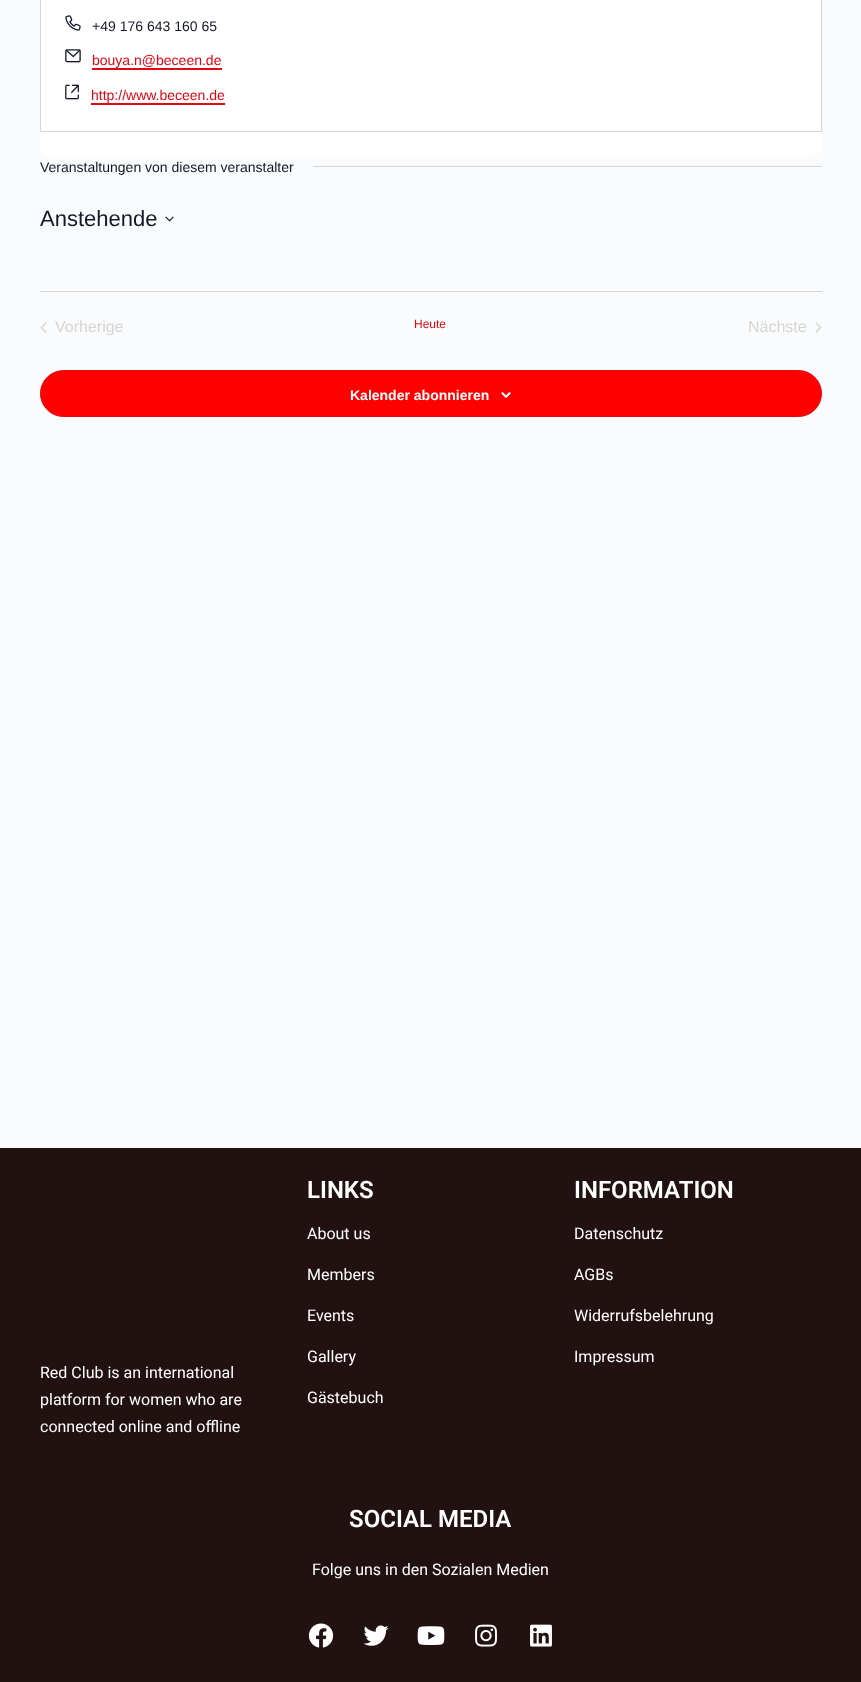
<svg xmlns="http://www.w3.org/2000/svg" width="861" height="1682">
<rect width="100%" height="100%" fill="#fafbfd"/>
<rect x="40" y="-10" width="782" height="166" rx="10" fill="#fff"/>
<rect x="40.5" y="-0.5" width="781" height="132" fill="none" stroke="#d5d5d5"/>
<image x="65" y="15" width="16" height="16" href="media/1.png"/>
<text x="92" y="31" style="font-family:Liberation Sans;font-size:14px;fill:#141827">+49 176 643 160 65</text>
<image x="65" y="49" width="16" height="14" href="media/2.png"/>
<text x="92" y="65" style="font-family:Liberation Sans;font-size:14px;fill:#e30613">bouya.n@beceen.de</text>
<rect x="92" y="68" width="130" height="2" fill="#e30614"/>
<image x="65" y="84" width="14" height="16" href="media/3.png"/>
<text x="91" y="100" style="font-family:Liberation Sans;font-size:14px;fill:#e30613">http://www.beceen.de</text>
<rect x="91" y="103" width="134" height="2" fill="#e30614"/>
<text x="40" y="172" style="font-family:Liberation Sans;font-size:14px;fill:#141827">Veranstaltungen von diesem veranstalter</text>
<rect x="313" y="166" width="509" height="1" fill="#d5d5d5"/>
<text x="40" y="226" style="font-family:Liberation Sans;font-size:22px;fill:#141827">Anstehende</text>
<image x="165" y="216" width="9" height="6" href="media/4.png"/>
<rect x="40" y="291" width="782" height="1" fill="#d5d5d5"/>
<image x="40" y="322" width="7" height="11" href="media/5.png"/>
<text x="55" y="332" style="font-family:Liberation Sans;font-size:16px;fill:#d5d5d5">Vorherige</text>
<text x="414" y="328" style="font-family:Liberation Sans;font-size:12px;fill:#e30613">Heute</text>
<text x="748" y="332" style="font-family:Liberation Sans;font-size:16px;fill:#d5d5d5">Nächste</text>
<image x="815" y="322" width="7" height="11" href="media/6.png"/>
<rect x="40.5" y="370.5" width="781" height="46" rx="23" fill="#f00" stroke="#e30613"/>
<text x="350" y="400" style="font-family:Liberation Sans;font-size:14px;font-weight:bold;fill:#fff">Kalender abonnieren</text>
<image x="501" y="392" width="10" height="6" href="media/7.png"/>
<rect y="1148" width="861" height="534" fill="#211"/>
<text x="307" y="1198" style="font-family:Roboto;font-size:24px;font-weight:600;fill:#fff">LINKS</text>
<text x="307" y="1239" style="font-family:Roboto;font-size:16px;fill:#fff">About us</text>
<text x="307" y="1280" style="font-family:Roboto;font-size:16px;fill:#fff">Members</text>
<text x="307" y="1321" style="font-family:Roboto;font-size:16px;fill:#fff">Events</text>
<text x="307" y="1362" style="font-family:Roboto;font-size:16px;fill:#fff">Gallery</text>
<text x="307" y="1403" style="font-family:Roboto;font-size:16px;fill:#fff">Gästebuch</text>
<text x="574" y="1198" style="font-family:Roboto;font-size:24px;font-weight:600;fill:#fff">INFORMATION</text>
<text x="574" y="1239" style="font-family:Roboto;font-size:16px;fill:#fff">Datenschutz</text>
<text x="574" y="1280" style="font-family:Roboto;font-size:16px;fill:#fff">AGBs</text>
<text x="574" y="1321" style="font-family:Roboto;font-size:16px;fill:#fff">Widerrufsbelehrung</text>
<text x="574" y="1362" style="font-family:Roboto;font-size:16px;fill:#fff">Impressum</text>
<text x="40" y="1378" style="font-family:Roboto;font-size:16px;fill:#fff">Red Club is an international</text>
<text x="40" y="1405" style="font-family:Roboto;font-size:16px;fill:#fff">platform for women who are</text>
<text x="40" y="1432" style="font-family:Roboto;font-size:16px;fill:#fff">connected online and offline</text>
<text x="349" y="1527" style="font-family:Roboto;font-size:24px;font-weight:600;fill:#fff">SOCIAL MEDIA</text>
<text x="312" y="1575" style="font-family:Roboto;font-size:16px;fill:#fff">Folge uns in den Sozialen Medien</text>
<image x="308" y="1623" width="26" height="25" href="media/8.png"/>
<image x="363" y="1625" width="26" height="21" href="media/9.png"/>
<image x="417" y="1626" width="28" height="19" href="media/10.png"/>
<image x="475" y="1624" width="22" height="23" href="media/11.png"/>
<image x="530" y="1624" width="22" height="23" href="media/12.png"/>
</svg>
